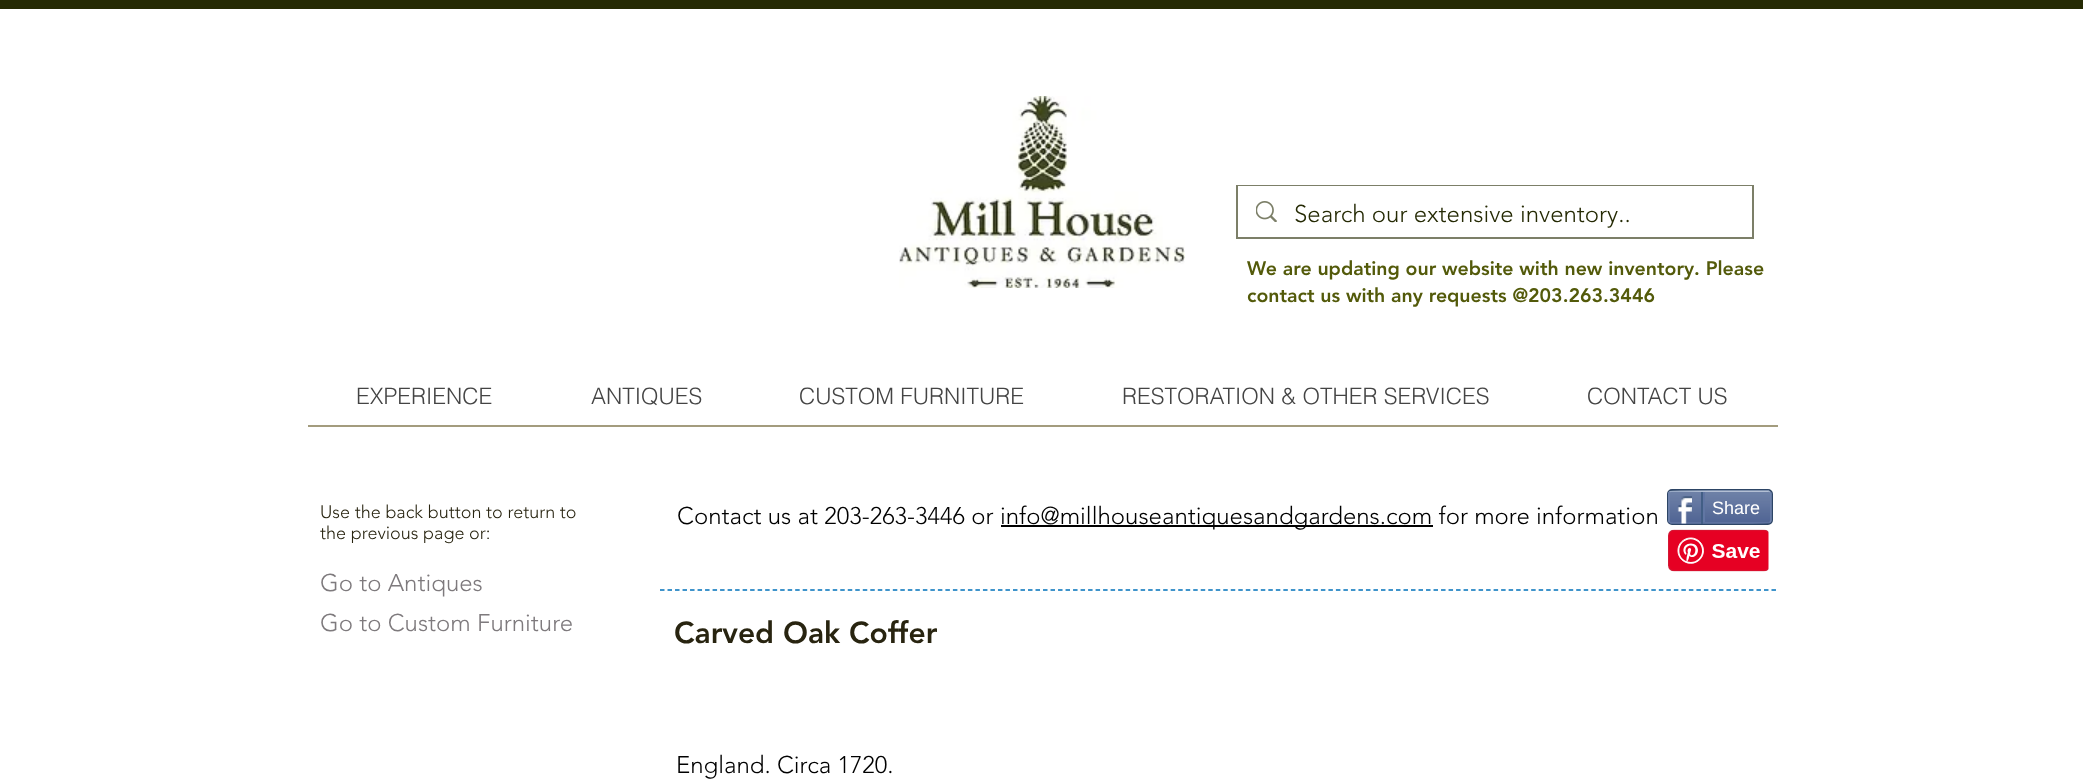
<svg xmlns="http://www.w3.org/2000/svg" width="2083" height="779">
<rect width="100%" height="100%" fill="#fff"/>
<rect width="2083" height="9" fill="#252a04"/>
<image x="899" y="96" width="286" height="192" href="media/1.png"/>
<rect x="1237" y="186" width="516" height="52" fill="none" stroke="#7c7f68" stroke-width="2"/>
<rect x="1238" y="186" width="514" height="1" fill="#fff"/>
<image x="1256" y="201" width="21" height="21" href="media/2.png"/>
<text x="1294" y="222" style="font-family:'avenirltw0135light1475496';font-size:24px;font-weight:300;fill:#252a04">Search our extensive inventory..</text>
<text x="1247" y="275" style="font-family:'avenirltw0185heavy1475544';font-size:19.5px;font-weight:900;fill:#535a0a">We are updating our website with new inventory. Please</text>
<text x="1247" y="302" style="font-family:'avenirltw0185heavy1475544';font-size:19.5px;font-weight:900;fill:#535a0a">contact us with any requests @203.263.3446</text>
<text x="356" y="404" style="font-family:helvetica;font-size:22.5px;font-weight:300;fill:#444">EXPERIENCE</text>
<rect x="308" y="425" width="1470" height="2" fill="#a39c7e"/>
<text x="591" y="404" style="font-family:helvetica;font-size:22.5px;font-weight:300;fill:#444">ANTIQUES</text>
<text x="799" y="404" style="font-family:helvetica;font-size:22.5px;font-weight:300;fill:#444">CUSTOM FURNITURE</text>
<text x="1122" y="404" style="font-family:helvetica;font-size:22.5px;font-weight:300;fill:#444">RESTORATION &amp; OTHER SERVICES</text>
<text x="1587" y="404" style="font-family:helvetica;font-size:22.5px;font-weight:300;fill:#444">CONTACT US</text>
<text x="320" y="518" style="font-family:'avenirltw0135light1475496';font-size:18px;font-weight:300;fill:#282410">Use the back button to return to</text>
<text x="320" y="539" style="font-family:'avenirltw0135light1475496';font-size:18px;font-weight:300;fill:#282410">the previous page or:</text>
<text x="677" y="524" style="font-family:'avenirltw0135light1475496';font-size:24px;font-weight:300;fill:#000">Contact us at 203-263-3446 or</text>
<rect x="1001" y="525" width="432" height="2" fill="#000"/>
<text x="1000" y="524" style="font-family:'avenirltw0135light1475496';font-size:24px;font-weight:300;fill:#000">info@millhouseantiquesandgardens.com for more information</text>
<rect x="1668" y="490" width="104" height="34" rx="4" fill="none" stroke="#2d4565" stroke-width="2"/>
<image x="1668" y="492" width="104" height="32" href="media/3.png"/>
<path d="M1669.5 492l.5-.5c1.5-1 74-.5 82-.5h16.5l1.5 1" fill="none" stroke="#9aabc6" stroke-width="1.5"/>
<path d="M1770 492c.5 .5 1 1 1 1.5v27c0 .5-.5 1-1 1.5" fill="none" stroke="#6f83ad" stroke-width="1.5"/>
<path d="M1770 522l-.5 .5c-1.5 1-74 .5-82.5 .5h-16l-1.5-1" fill="none" stroke="#6176a3" stroke-width="1.5"/>
<path d="M1669.5 522c-.5-.5-.5-1-.5-1.5v-27c0-.5 0-1 .5-1.5" fill="none" stroke="#6f83ad" stroke-width="1.5"/>
<image x="1677" y="496" width="15" height="28" href="media/4.png"/>
<rect x="1701" y="492" width="2" height="32" fill="#425e85"/>
<text x="1712" y="514" style="font-family:Liberation Sans;font-size:18px;fill:#fff">Share</text>
<rect x="1703" y="492" width="2" height="30" fill="#6176a3"/>
<image x="1668" y="529" width="101" height="43" href="media/5.png"/>
<text x="320" y="591" style="font-family:'avenirltw0135light1475496';font-size:24px;font-weight:300;fill:#7e7a7d">Go to Antiques</text>
<path d="M660 590h1117.5" fill="none" stroke="#0071bb" stroke-width="1.5" stroke-dasharray="4.5 3.01"/>
<text x="320" y="631" style="font-family:'avenirltw0135light1475496';font-size:24px;font-weight:300;fill:#7e7a7d">Go to Custom Furniture</text>
<text x="674" y="643" style="font-family:'avenirltw0185heavy1475544';font-size:30px;font-weight:900;fill:#282410">Carved Oak Coffer</text>
<text x="676" y="773" style="font-family:'avenirltw0135light1475496';font-size:24px;font-weight:300;fill:#000">England. Circa 1720.</text>
</svg>
